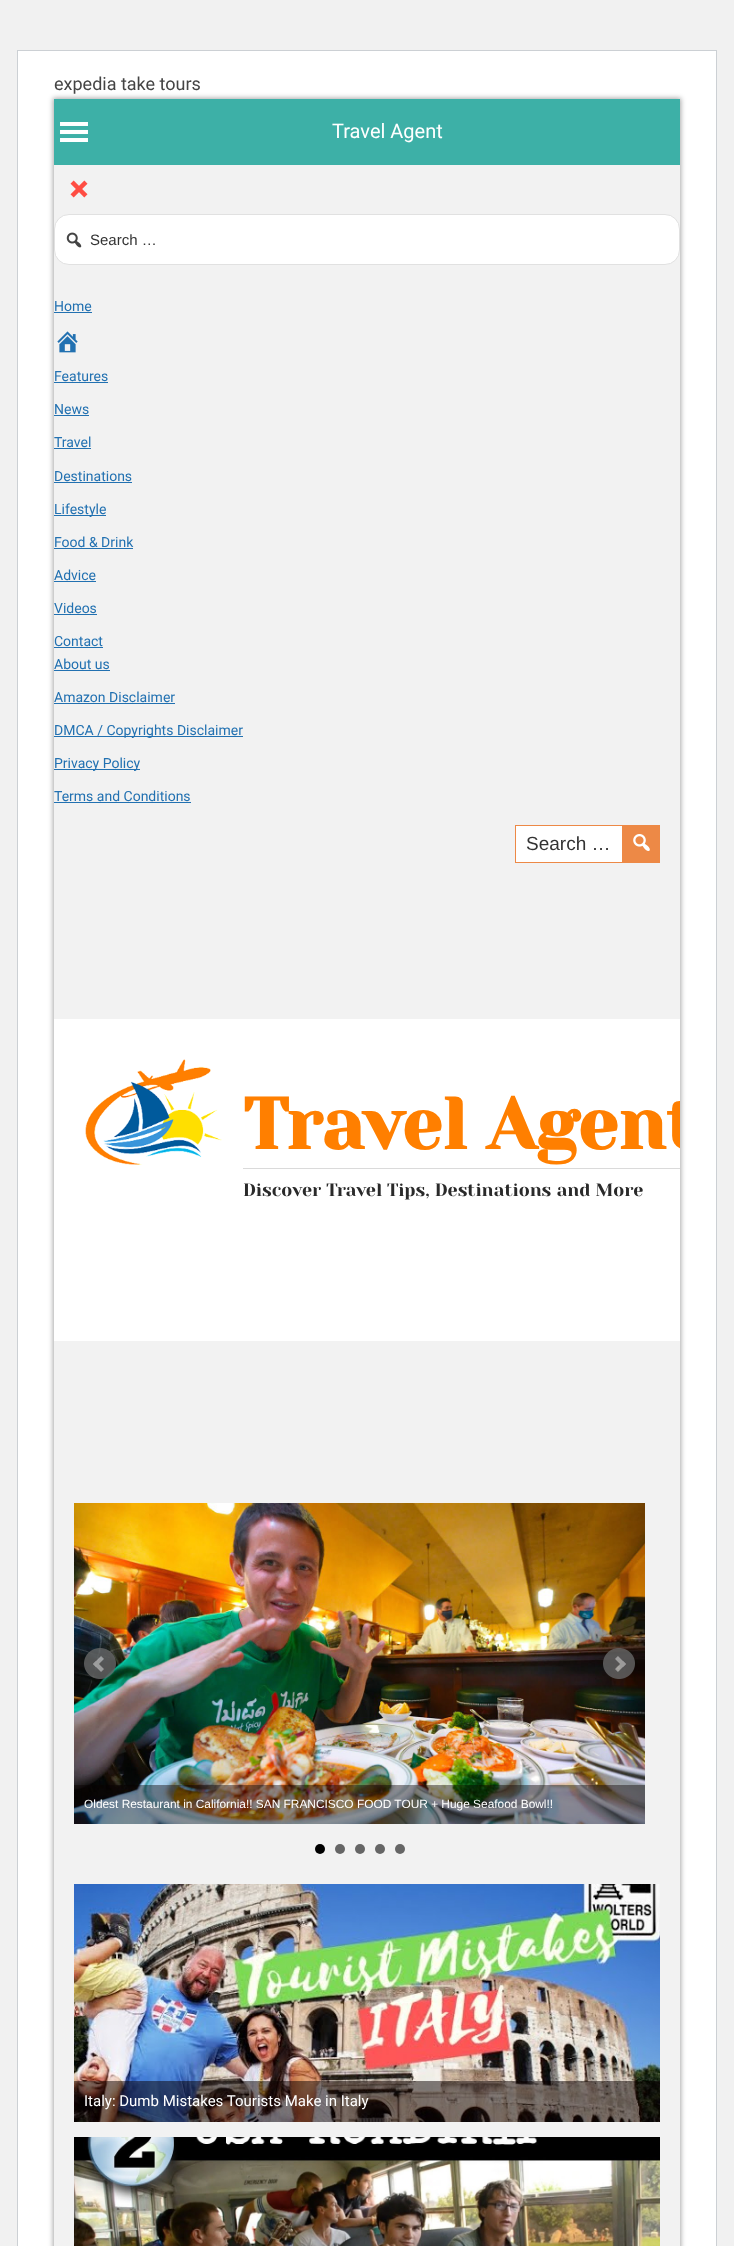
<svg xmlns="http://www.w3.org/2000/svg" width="734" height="2246">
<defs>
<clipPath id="clip1"><rect x="54" y="99" width="626" height="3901"/></clipPath>
</defs>
<rect width="100%" height="100%" fill="#f1f1f1"/>
<rect x="17.5" y="50.5" width="699" height="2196" fill="#fff" stroke="#ccd0d4"/>
<text x="54" y="90" style="font-family:Roboto;font-size:18px;fill:#444">expedia take tours</text>
<rect x="53" y="98" width="628" height="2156" fill="#00000057" filter="blur(2.5px)"/>
<rect x="54" y="165" width="626" height="2081" fill="#f2f2f2"/>
<rect x="54" y="99" width="626" height="66" fill="#3db0a7"/>
<image x="60" y="122" width="28" height="20" href="media/1.png"/>
<text x="332" y="138" style="font-family:Roboto;font-size:20px;fill:#fff">Travel Agent</text>
<image x="70" y="180" width="18" height="18" href="media/2.png"/>
<rect x="54.5" y="214.5" width="625" height="50" rx="14.5" fill="#fff" stroke="#e1e1e1"/>
<image x="66" y="232" width="16" height="16" href="media/3.png"/>
<text x="90" y="245" style="font-family:Liberation Sans;font-size:15px;fill:#333">Search …</text>
<text x="54" y="311" style="font-family:Roboto;font-size:14px;fill:#2271b1">Home</text>
<rect x="54" y="312" width="38" height="1" fill="#2271b1"/>
<image x="57" y="331" width="21" height="22" href="media/4.png"/>
<text x="54" y="381" style="font-family:Roboto;font-size:14px;fill:#2271b1">Features</text>
<rect x="54" y="382" width="54" height="1" fill="#2271b1"/>
<text x="54" y="414" style="font-family:Roboto;font-size:14px;fill:#2271b1">News</text>
<rect x="54" y="415" width="35" height="1" fill="#2271b1"/>
<text x="54" y="447" style="font-family:Roboto;font-size:14px;fill:#2271b1">Travel</text>
<rect x="54" y="448" width="37" height="1" fill="#2271b1"/>
<text x="54" y="481" style="font-family:Roboto;font-size:14px;fill:#2271b1">Destinations</text>
<rect x="54" y="482" width="78" height="1" fill="#2271b1"/>
<rect x="54" y="515" width="52" height="1" fill="#2271b1"/>
<text x="54" y="514" style="font-family:Roboto;font-size:14px;fill:#2271b1">Lifestyle</text>
<text x="54" y="547" style="font-family:Roboto;font-size:14px;fill:#2271b1">Food &amp; Drink</text>
<rect x="54" y="548" width="79" height="1" fill="#2271b1"/>
<text x="54" y="580" style="font-family:Roboto;font-size:14px;fill:#2271b1">Advice</text>
<rect x="54" y="581" width="42" height="1" fill="#2271b1"/>
<text x="54" y="613" style="font-family:Roboto;font-size:14px;fill:#2271b1">Videos</text>
<rect x="54" y="614" width="43" height="1" fill="#2271b1"/>
<text x="54" y="646" style="font-family:Roboto;font-size:14px;fill:#2271b1">Contact</text>
<rect x="54" y="647" width="49" height="1" fill="#2271b1"/>
<text x="54" y="669" style="font-family:Roboto;font-size:14px;fill:#2271b1">About us</text>
<rect x="54" y="670" width="56" height="1" fill="#2271b1"/>
<text x="54" y="702" style="font-family:Roboto;font-size:14px;fill:#2271b1">Amazon Disclaimer</text>
<rect x="54" y="703" width="121" height="1" fill="#2271b1"/>
<rect x="54" y="736" width="189" height="1" fill="#2271b1"/>
<text x="54" y="735" style="font-family:Roboto;font-size:14px;fill:#2271b1">DMCA / Copyrights Disclaimer</text>
<rect x="54" y="769" width="86" height="1" fill="#2271b1"/>
<text x="54" y="768" style="font-family:Roboto;font-size:14px;fill:#2271b1">Privacy Policy</text>
<text x="54" y="801" style="font-family:Roboto;font-size:14px;fill:#2271b1">Terms and Conditions</text>
<rect x="54" y="802" width="137" height="1" fill="#2271b1"/>
<rect x="516" y="826" width="106" height="36" fill="#fff"/>
<rect x="515.5" y="825.5" width="142" height="37" fill="none" stroke="#ed8946"/>
<text x="526" y="850" style="font-family:Liberation Sans;font-size:19px;fill:#333">Search …</text>
<rect x="622" y="825" width="38" height="38" fill="#ed8946"/>
<image x="633" y="834" width="17" height="17" href="media/5.png"/>
<rect x="54" y="1019" width="626" height="322" fill="#fff"/>
<image x="85" y="1059" width="137" height="106" href="media/6.png"/>
<rect x="243" y="1168" width="437" height="1" fill="#dadada"/>
<g clip-path="url(#clip1)">
<text x="243" y="1149" style="font-family:Yeseva One;font-size:72px;font-weight:bold;fill:#ff7f00">Travel Agent</text>
</g>
<text x="243" y="1196" style="font-family:Yeseva One;font-size:18px;fill:#2a2a2a">Discover Travel Tips, Destinations and More</text>
<image x="74" y="1503" width="571" height="321" href="media/9.png"/>
<image x="84" y="1648" width="32" height="31" href="media/7.png"/>
<image x="603" y="1648" width="32" height="31" href="media/8.png"/>
<circle cx="320" cy="1849" r="5" fill="#000"/>
<circle cx="340" cy="1849" r="5" fill="#666"/>
<circle cx="360" cy="1849" r="5" fill="#666"/>
<circle cx="380" cy="1849" r="5" fill="#666"/>
<circle cx="400" cy="1849" r="5" fill="#666"/>
<rect x="74" y="1785" width="571" height="39" fill="#0a00006b"/>
<text x="84" y="1808" style="font-family:Liberation Sans;font-size:11.9px;fill:#fff">Oldest Restaurant in California!! SAN FRANCISCO FOOD TOUR + Huge Seafood Bowl!!</text>
<image x="74" y="1884" width="586" height="238" href="media/10.png"/>
<rect x="74" y="2081" width="586" height="41" fill="#0a000080"/>
<text x="84" y="2106" style="font-family:Roboto;font-size:15px;fill:#fff">Italy: Dumb Mistakes Tourists Make in Italy</text>
<image x="74" y="2137" width="586" height="109" href="media/11.png"/>
</svg>
